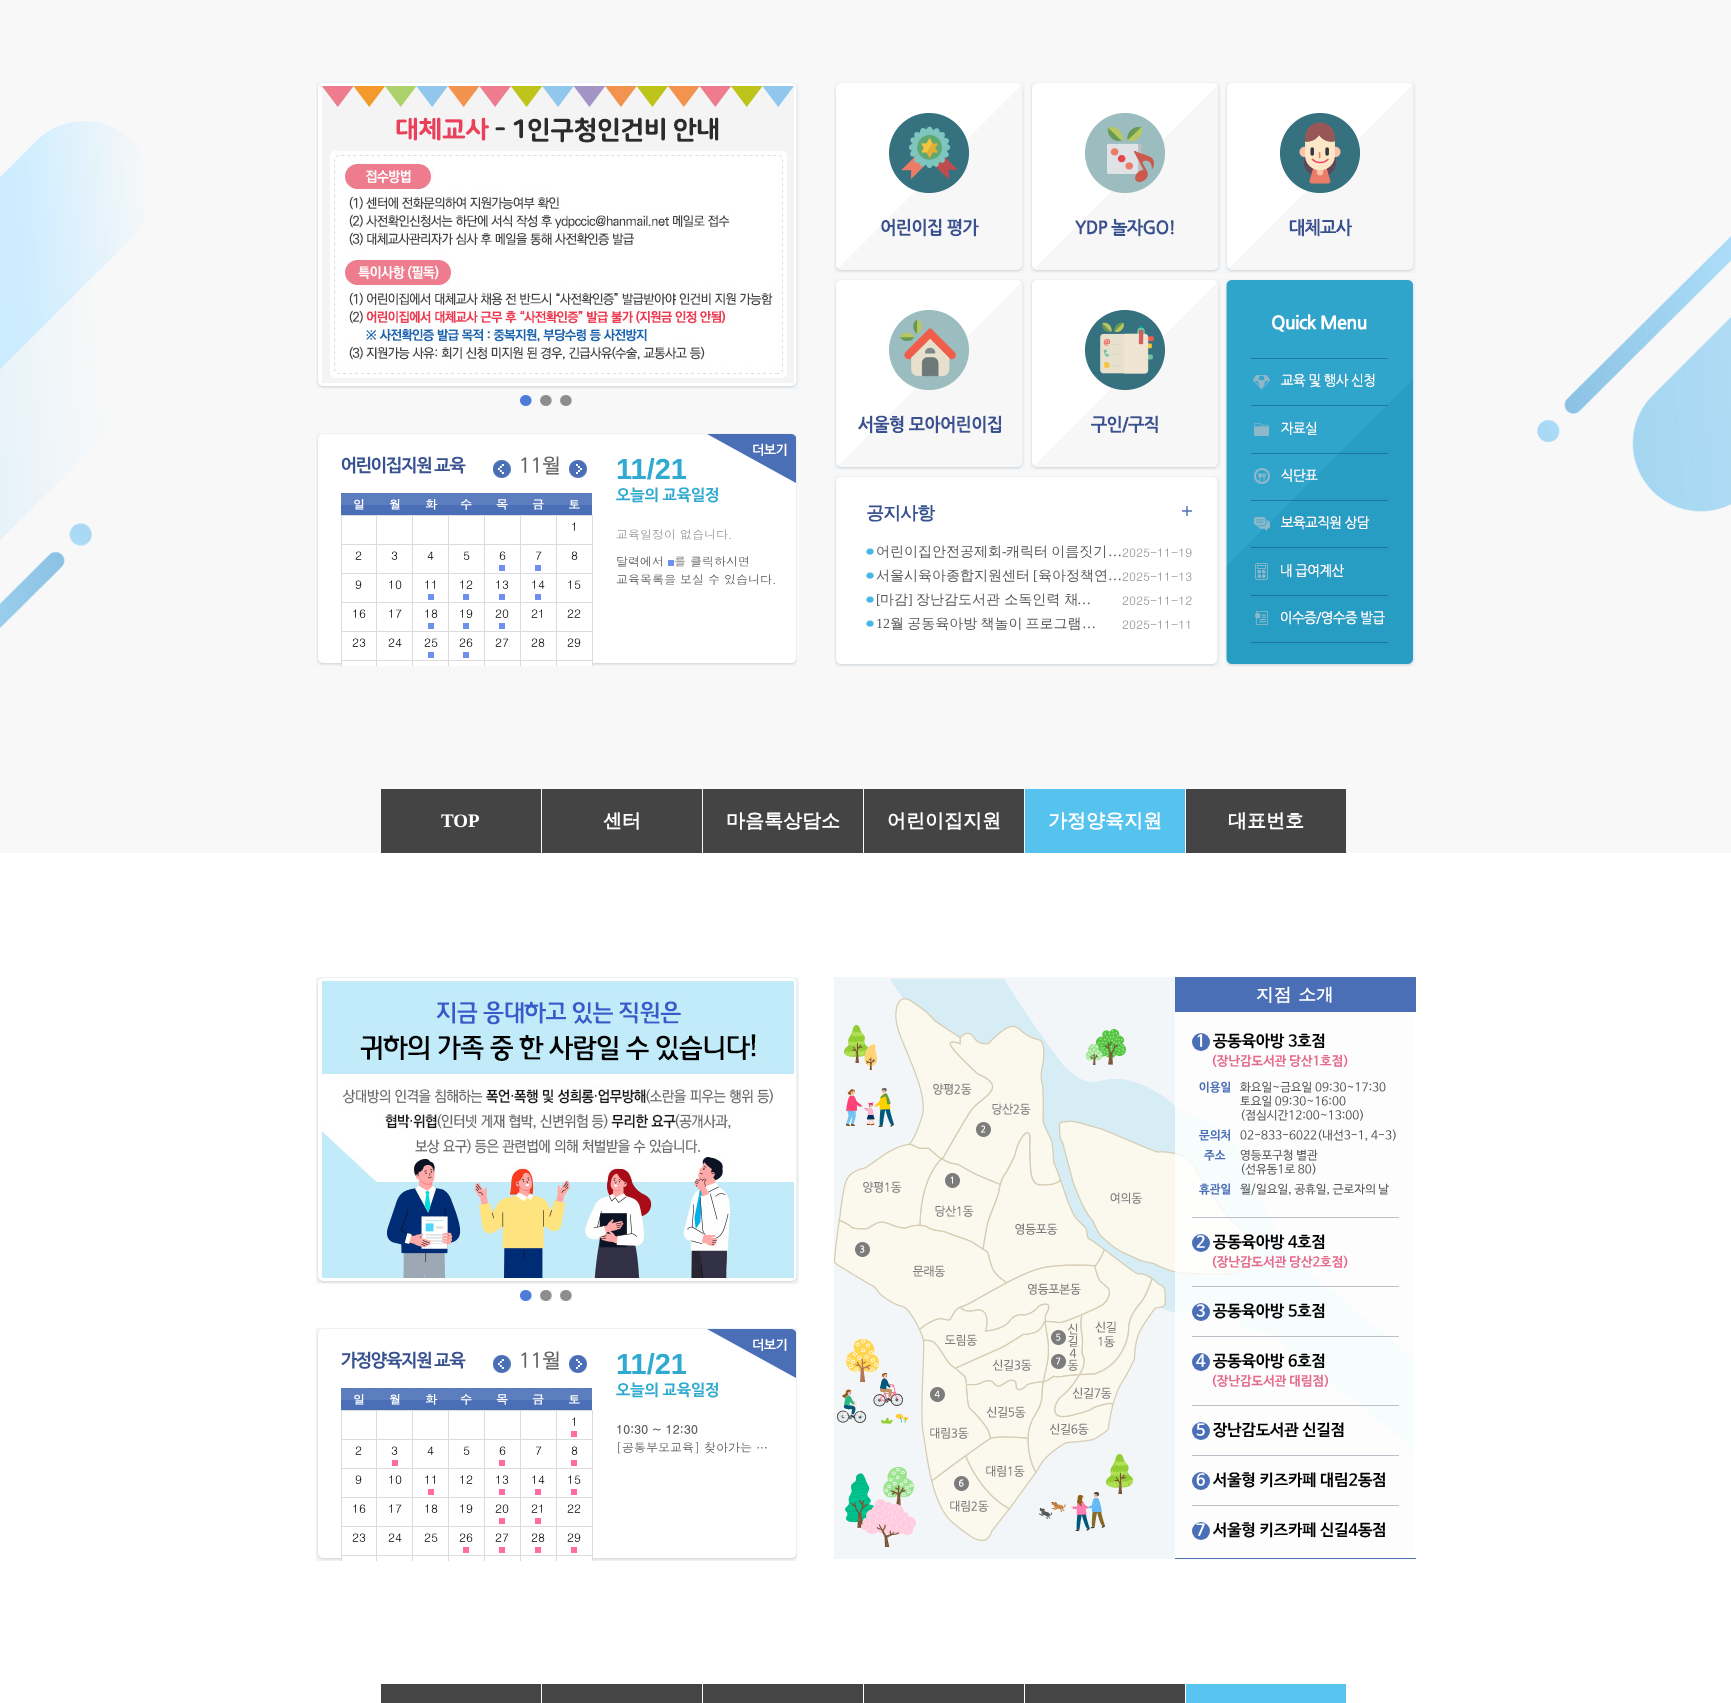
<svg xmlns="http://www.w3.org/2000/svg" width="1731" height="1703">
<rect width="100%" height="100%" fill="#fff"/>
<rect width="1731" height="853" fill="#f8f8f8"/>
<image x="0" y="121" width="144" height="507" href="media/1.png"/>
<image x="1537" y="236" width="194" height="276" href="media/2.png"/>
<image x="316" y="82" width="483" height="307" href="media/3.png"/>
<image x="322" y="86" width="472" height="297" href="media/4.png"/>
<image x="520" y="395" width="12" height="11" href="media/5.png"/>
<image x="540" y="395" width="12" height="11" href="media/6.png"/>
<image x="560" y="395" width="12" height="11" href="media/6.png"/>
<image x="316" y="433" width="481" height="233" href="media/7.png"/>
<text x="341" y="471" style="font-family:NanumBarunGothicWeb;font-size:18px;font-weight:bold;letter-spacing:-1px;fill:#385190">어린이집지원 교육</text>
<image x="493" y="460" width="18" height="18" href="media/8.png"/>
<text x="519" y="472" style="font-family:NanumBarunGothicWeb;font-size:20px;fill:#646464">11월</text>
<image x="569" y="460" width="18" height="18" href="media/9.png"/>
<rect x="342" y="663" width="251" height="3" fill="#fff"/>
<image x="341" y="493" width="36" height="22" href="media/10.png"/>
<text x="353" y="509" style="font-family:Dotum;font-size:12px;font-weight:bold;fill:#fff">일</text>
<image x="377" y="493" width="36" height="22" href="media/10.png"/>
<text x="389" y="509" style="font-family:Dotum;font-size:12px;font-weight:bold;fill:#fff">월</text>
<image x="413" y="493" width="36" height="22" href="media/10.png"/>
<text x="425" y="509" style="font-family:Dotum;font-size:12px;font-weight:bold;fill:#fff">화</text>
<image x="449" y="493" width="35" height="22" href="media/11.png"/>
<text x="460" y="509" style="font-family:Dotum;font-size:12px;font-weight:bold;fill:#fff">수</text>
<image x="484" y="493" width="36" height="22" href="media/10.png"/>
<text x="496" y="509" style="font-family:Dotum;font-size:12px;font-weight:bold;fill:#fff">목</text>
<image x="520" y="493" width="36" height="22" href="media/10.png"/>
<text x="532" y="509" style="font-family:Dotum;font-size:12px;font-weight:bold;fill:#fff">금</text>
<image x="556" y="493" width="36" height="22" href="media/10.png"/>
<text x="568" y="509" style="font-family:Dotum;font-size:12px;font-weight:bold;fill:#fff">토</text>
<rect x="556" y="515" width="37" height="1" fill="#dcdcdc"/>
<rect x="556" y="544" width="37" height="1" fill="#dcdcdc"/>
<rect x="556" y="573" width="37" height="1" fill="#dcdcdc"/>
<rect x="556" y="602" width="37" height="1" fill="#dcdcdc"/>
<rect x="556" y="631" width="37" height="1" fill="#dcdcdc"/>
<rect x="556" y="660" width="37" height="1" fill="#dcdcdc"/>
<rect x="556" y="660" width="1" height="6" fill="#dcdcdc"/>
<rect x="520" y="660" width="37" height="1" fill="#dcdcdc"/>
<rect x="556" y="631" width="1" height="30" fill="#dcdcdc"/>
<rect x="520" y="631" width="37" height="1" fill="#dcdcdc"/>
<rect x="556" y="602" width="1" height="30" fill="#dcdcdc"/>
<rect x="520" y="602" width="37" height="1" fill="#dcdcdc"/>
<rect x="556" y="573" width="1" height="30" fill="#dcdcdc"/>
<rect x="520" y="573" width="37" height="1" fill="#dcdcdc"/>
<rect x="556" y="544" width="1" height="30" fill="#dcdcdc"/>
<rect x="520" y="544" width="37" height="1" fill="#dcdcdc"/>
<rect x="556" y="515" width="1" height="30" fill="#dcdcdc"/>
<rect x="520" y="515" width="37" height="1" fill="#dcdcdc"/>
<rect x="520" y="660" width="1" height="6" fill="#dcdcdc"/>
<rect x="484" y="660" width="37" height="1" fill="#dcdcdc"/>
<rect x="520" y="631" width="1" height="30" fill="#dcdcdc"/>
<rect x="484" y="631" width="37" height="1" fill="#dcdcdc"/>
<rect x="520" y="602" width="1" height="30" fill="#dcdcdc"/>
<rect x="484" y="602" width="37" height="1" fill="#dcdcdc"/>
<rect x="520" y="573" width="1" height="30" fill="#dcdcdc"/>
<rect x="484" y="573" width="37" height="1" fill="#dcdcdc"/>
<rect x="520" y="544" width="1" height="30" fill="#dcdcdc"/>
<rect x="484" y="544" width="37" height="1" fill="#dcdcdc"/>
<rect x="520" y="515" width="1" height="30" fill="#dcdcdc"/>
<rect x="484" y="515" width="37" height="1" fill="#dcdcdc"/>
<rect x="484" y="660" width="1" height="6" fill="#dcdcdc"/>
<rect x="448" y="660" width="37" height="1" fill="#dcdcdc"/>
<rect x="484" y="631" width="1" height="30" fill="#dcdcdc"/>
<rect x="448" y="631" width="37" height="1" fill="#dcdcdc"/>
<rect x="484" y="602" width="1" height="30" fill="#dcdcdc"/>
<rect x="448" y="602" width="37" height="1" fill="#dcdcdc"/>
<rect x="484" y="573" width="1" height="30" fill="#dcdcdc"/>
<rect x="448" y="573" width="37" height="1" fill="#dcdcdc"/>
<rect x="484" y="544" width="1" height="30" fill="#dcdcdc"/>
<rect x="448" y="544" width="37" height="1" fill="#dcdcdc"/>
<rect x="484" y="515" width="1" height="30" fill="#dcdcdc"/>
<rect x="448" y="515" width="37" height="1" fill="#dcdcdc"/>
<rect x="448" y="660" width="1" height="6" fill="#dcdcdc"/>
<rect x="412" y="660" width="37" height="1" fill="#dcdcdc"/>
<rect x="448" y="631" width="1" height="30" fill="#dcdcdc"/>
<rect x="412" y="631" width="37" height="1" fill="#dcdcdc"/>
<rect x="448" y="602" width="1" height="30" fill="#dcdcdc"/>
<rect x="412" y="602" width="37" height="1" fill="#dcdcdc"/>
<rect x="448" y="573" width="1" height="30" fill="#dcdcdc"/>
<rect x="412" y="573" width="37" height="1" fill="#dcdcdc"/>
<rect x="448" y="544" width="1" height="30" fill="#dcdcdc"/>
<rect x="412" y="544" width="37" height="1" fill="#dcdcdc"/>
<rect x="448" y="515" width="1" height="30" fill="#dcdcdc"/>
<rect x="412" y="515" width="37" height="1" fill="#dcdcdc"/>
<rect x="412" y="660" width="1" height="6" fill="#dcdcdc"/>
<rect x="376" y="660" width="37" height="1" fill="#dcdcdc"/>
<rect x="412" y="631" width="1" height="30" fill="#dcdcdc"/>
<rect x="376" y="631" width="37" height="1" fill="#dcdcdc"/>
<rect x="412" y="602" width="1" height="30" fill="#dcdcdc"/>
<rect x="376" y="602" width="37" height="1" fill="#dcdcdc"/>
<rect x="412" y="573" width="1" height="30" fill="#dcdcdc"/>
<rect x="376" y="573" width="37" height="1" fill="#dcdcdc"/>
<rect x="412" y="544" width="1" height="30" fill="#dcdcdc"/>
<rect x="376" y="544" width="37" height="1" fill="#dcdcdc"/>
<rect x="412" y="515" width="1" height="30" fill="#dcdcdc"/>
<rect x="376" y="515" width="37" height="1" fill="#dcdcdc"/>
<rect x="376" y="660" width="1" height="6" fill="#dcdcdc"/>
<rect x="341" y="660" width="36" height="1" fill="#dcdcdc"/>
<rect x="376" y="631" width="1" height="30" fill="#dcdcdc"/>
<rect x="341" y="631" width="36" height="1" fill="#dcdcdc"/>
<rect x="376" y="602" width="1" height="30" fill="#dcdcdc"/>
<rect x="341" y="602" width="36" height="1" fill="#dcdcdc"/>
<rect x="376" y="573" width="1" height="30" fill="#dcdcdc"/>
<rect x="341" y="573" width="36" height="1" fill="#dcdcdc"/>
<rect x="376" y="544" width="1" height="30" fill="#dcdcdc"/>
<rect x="341" y="544" width="36" height="1" fill="#dcdcdc"/>
<rect x="376" y="515" width="1" height="30" fill="#dcdcdc"/>
<rect x="341" y="515" width="36" height="1" fill="#dcdcdc"/>
<rect x="341" y="660" width="1" height="6" fill="#dcdcdc"/>
<rect x="341" y="631" width="1" height="30" fill="#dcdcdc"/>
<rect x="341" y="602" width="1" height="30" fill="#dcdcdc"/>
<rect x="341" y="573" width="1" height="30" fill="#dcdcdc"/>
<rect x="341" y="544" width="1" height="30" fill="#dcdcdc"/>
<rect x="341" y="515" width="1" height="30" fill="#dcdcdc"/>
<rect x="592" y="660" width="1" height="6" fill="#dcdcdc"/>
<rect x="592" y="631" width="1" height="30" fill="#dcdcdc"/>
<rect x="592" y="602" width="1" height="30" fill="#dcdcdc"/>
<rect x="592" y="573" width="1" height="30" fill="#dcdcdc"/>
<rect x="592" y="544" width="1" height="30" fill="#dcdcdc"/>
<rect x="592" y="515" width="1" height="30" fill="#dcdcdc"/>
<text x="571" y="531" style="font-family:Dotum;font-size:12px;fill:#000">1</text>
<text x="355" y="560" style="font-family:Dotum;font-size:12px;fill:#000">2</text>
<text x="391" y="560" style="font-family:Dotum;font-size:12px;fill:#000">3</text>
<text x="427" y="560" style="font-family:Dotum;font-size:12px;fill:#000">4</text>
<text x="463" y="560" style="font-family:Dotum;font-size:12px;fill:#000">5</text>
<rect x="499" y="565" width="6" height="6" fill="#6d91ed"/>
<text x="499" y="560" style="font-family:Dotum;font-size:12px;fill:#000">6</text>
<rect x="535" y="565" width="6" height="6" fill="#6d91ed"/>
<text x="535" y="560" style="font-family:Dotum;font-size:12px;fill:#000">7</text>
<text x="571" y="560" style="font-family:Dotum;font-size:12px;fill:#000">8</text>
<text x="355" y="589" style="font-family:Dotum;font-size:12px;fill:#000">9</text>
<text x="388" y="589" style="font-family:Dotum;font-size:12px;fill:#000">10</text>
<rect x="428" y="594" width="6" height="6" fill="#6d91ed"/>
<text x="424" y="589" style="font-family:Dotum;font-size:12px;fill:#000">11</text>
<rect x="463" y="594" width="6" height="6" fill="#6d91ed"/>
<text x="459" y="589" style="font-family:Dotum;font-size:12px;fill:#000">12</text>
<rect x="499" y="594" width="6" height="6" fill="#6d91ed"/>
<text x="495" y="589" style="font-family:Dotum;font-size:12px;fill:#000">13</text>
<rect x="535" y="594" width="6" height="6" fill="#6d91ed"/>
<text x="531" y="589" style="font-family:Dotum;font-size:12px;fill:#000">14</text>
<text x="567" y="589" style="font-family:Dotum;font-size:12px;fill:#000">15</text>
<text x="352" y="618" style="font-family:Dotum;font-size:12px;fill:#000">16</text>
<text x="388" y="618" style="font-family:Dotum;font-size:12px;fill:#000">17</text>
<rect x="428" y="623" width="6" height="6" fill="#6d91ed"/>
<text x="424" y="618" style="font-family:Dotum;font-size:12px;fill:#000">18</text>
<rect x="463" y="623" width="6" height="6" fill="#6d91ed"/>
<text x="459" y="618" style="font-family:Dotum;font-size:12px;fill:#000">19</text>
<rect x="499" y="623" width="6" height="6" fill="#6d91ed"/>
<text x="495" y="618" style="font-family:Dotum;font-size:12px;fill:#000">20</text>
<text x="531" y="618" style="font-family:Dotum;font-size:12px;fill:#000">21</text>
<text x="567" y="618" style="font-family:Dotum;font-size:12px;fill:#000">22</text>
<text x="352" y="647" style="font-family:Dotum;font-size:12px;fill:#000">23</text>
<text x="388" y="647" style="font-family:Dotum;font-size:12px;fill:#000">24</text>
<rect x="428" y="652" width="6" height="6" fill="#6d91ed"/>
<text x="424" y="647" style="font-family:Dotum;font-size:12px;fill:#000">25</text>
<rect x="463" y="652" width="6" height="6" fill="#6d91ed"/>
<text x="459" y="647" style="font-family:Dotum;font-size:12px;fill:#000">26</text>
<text x="495" y="647" style="font-family:Dotum;font-size:12px;fill:#000">27</text>
<text x="531" y="647" style="font-family:Dotum;font-size:12px;fill:#000">28</text>
<text x="567" y="647" style="font-family:Dotum;font-size:12px;fill:#000">29</text>
<image x="753" y="443" width="34" height="13" href="media/12.png"/>
<text x="616" y="479" style="font-family:Liberation Sans;font-size:29px;font-weight:bold;fill:#31aad1">11/21</text>
<text x="616" y="500" style="font-family:NanumBarunGothicWeb;font-size:16px;font-weight:bold;fill:#31aad1">오늘의 교육일정</text>
<text x="616" y="539" style="font-family:Dotum;font-size:12px;fill:#999">교육일정이 없습니다.</text>
<text x="616" y="566" style="font-family:Dotum;font-size:12px;fill:#585858">달력에서</text>
<rect x="668" y="560" width="6" height="6" fill="#6d91ed"/>
<text x="674" y="566" style="font-family:Dotum;font-size:12px;fill:#585858">를 클릭하시면</text>
<text x="616" y="584" style="font-family:Dotum;font-size:12px;fill:#585858">교육목록을 보실 수 있습니다.</text>
<image x="834" y="82" width="191" height="191" href="media/13.png"/>
<image x="1030" y="82" width="191" height="191" href="media/14.png"/>
<image x="1225" y="82" width="191" height="191" href="media/15.png"/>
<image x="834" y="279" width="191" height="191" href="media/16.png"/>
<image x="1030" y="279" width="191" height="191" href="media/17.png"/>
<image x="834" y="476" width="387" height="191" href="media/18.png"/>
<text x="866" y="519" style="font-family:WenQuanYi Zen Hei;font-size:18px;font-weight:bold;letter-spacing:-1px;fill:#385190">공지사항</text>
<image x="1182" y="506" width="10" height="10" href="media/19.png"/>
<image x="866" y="548" width="8" height="7" href="media/20.png"/>
<text x="876" y="556" style="font-family:WenQuanYi Zen Hei;font-size:14px;font-weight:500;fill:#585858">어린이집안전공제회</text>
<text x="1002" y="556" style="font-family:Liberation Serif;font-size:14px;fill:#585858">-</text>
<text x="1006" y="556" word-spacing="-1" style="font-family:WenQuanYi Zen Hei;font-size:14px;font-weight:500;fill:#585858">캐릭터 이름짓기</text>
<text x="1108" y="556" style="font-family:Liberation Serif;font-size:14px;fill:#585858">…</text>
<text x="1122" y="557" style="font-family:Dotum;font-size:12px;fill:#919090">2025-11-19</text>
<image x="866" y="572" width="8" height="7" href="media/20.png"/>
<text x="876" y="580" style="font-family:WenQuanYi Zen Hei;font-size:14px;font-weight:500;fill:#585858">서울시육아종합지원센터</text>
<text x="1033" y="580" style="font-family:Liberation Serif;font-size:14px;fill:#585858">[</text>
<text x="1038" y="580" style="font-family:WenQuanYi Zen Hei;font-size:14px;font-weight:500;fill:#585858">육아정책연</text>
<text x="1108" y="580" style="font-family:Liberation Serif;font-size:14px;fill:#585858">…</text>
<text x="1122" y="581" style="font-family:Dotum;font-size:12px;fill:#919090">2025-11-13</text>
<image x="866" y="596" width="8" height="7" href="media/20.png"/>
<text x="876" y="604" style="font-family:Liberation Serif;font-size:14px;fill:#585858">[</text>
<text x="880" y="604" style="font-family:WenQuanYi Zen Hei;font-size:14px;font-weight:500;fill:#585858">마감</text>
<text x="908" y="604" style="font-family:Liberation Serif;font-size:14px;fill:#585858">]</text>
<text x="916" y="604" style="font-family:WenQuanYi Zen Hei;font-size:14px;font-weight:500;fill:#585858">장난감도서관 소독인력 채</text>
<text x="1077" y="604" style="font-family:Liberation Serif;font-size:14px;fill:#585858">…</text>
<text x="1122" y="605" style="font-family:Dotum;font-size:12px;fill:#919090">2025-11-12</text>
<image x="866" y="620" width="8" height="7" href="media/20.png"/>
<text x="876" y="628" style="font-family:Liberation Serif;font-size:14px;fill:#585858">12</text>
<text x="890" y="628" word-spacing="-1" style="font-family:WenQuanYi Zen Hei;font-size:14px;font-weight:500;fill:#585858">월 공동육아방 책놀이 프로그램</text>
<text x="1082" y="628" style="font-family:Liberation Serif;font-size:14px;fill:#585858">…</text>
<text x="1122" y="629" style="font-family:Dotum;font-size:12px;fill:#919090">2025-11-11</text>
<image x="1225" y="279" width="191" height="80" href="media/21.png"/>
<image x="1225" y="359" width="191" height="47" href="media/22.png"/>
<image x="1225" y="406" width="191" height="48" href="media/23.png"/>
<image x="1225" y="454" width="191" height="47" href="media/24.png"/>
<image x="1225" y="501" width="191" height="47" href="media/25.png"/>
<image x="1225" y="548" width="191" height="48" href="media/26.png"/>
<image x="1225" y="596" width="191" height="47" href="media/27.png"/>
<image x="1225" y="643" width="191" height="24" href="media/28.png"/>
<rect x="381" y="789" width="160" height="64" fill="#444"/>
<text x="441" y="827" style="font-family:Liberation Serif;font-size:19px;font-weight:bold;fill:#fff">TOP</text>
<rect x="542" y="789" width="160" height="64" fill="#444"/>
<text x="603" y="827" style="font-family:WenQuanYi Zen Hei;font-size:19px;font-weight:bold;fill:#fff">센터</text>
<rect x="703" y="789" width="160" height="64" fill="#444"/>
<text x="726" y="827" style="font-family:WenQuanYi Zen Hei;font-size:19px;font-weight:bold;fill:#fff">마음톡상담소</text>
<rect x="864" y="789" width="160" height="64" fill="#444"/>
<text x="887" y="827" style="font-family:WenQuanYi Zen Hei;font-size:19px;font-weight:bold;fill:#fff">어린이집지원</text>
<rect x="1025" y="789" width="160" height="64" fill="#56c3ee"/>
<text x="1048" y="827" style="font-family:WenQuanYi Zen Hei;font-size:19px;font-weight:bold;fill:#fff">가정양육지원</text>
<rect x="1186" y="789" width="160" height="64" fill="#444"/>
<text x="1228" y="827" style="font-family:WenQuanYi Zen Hei;font-size:19px;font-weight:bold;fill:#fff">대표번호</text>
<image x="316" y="977" width="483" height="307" href="media/3.png"/>
<image x="322" y="981" width="472" height="297" href="media/29.png"/>
<image x="520" y="1290" width="12" height="11" href="media/5.png"/>
<image x="540" y="1290" width="12" height="11" href="media/6.png"/>
<image x="560" y="1290" width="12" height="11" href="media/6.png"/>
<image x="316" y="1328" width="481" height="233" href="media/7.png"/>
<text x="341" y="1366" style="font-family:NanumBarunGothicWeb;font-size:18px;font-weight:bold;letter-spacing:-1px;fill:#385190">가정양육지원 교육</text>
<image x="493" y="1355" width="18" height="18" href="media/8.png"/>
<text x="519" y="1367" style="font-family:NanumBarunGothicWeb;font-size:20px;fill:#646464">11월</text>
<image x="569" y="1355" width="18" height="18" href="media/9.png"/>
<rect x="342" y="1558" width="251" height="3" fill="#fff"/>
<image x="341" y="1388" width="36" height="22" href="media/10.png"/>
<text x="353" y="1404" style="font-family:Dotum;font-size:12px;font-weight:bold;fill:#fff">일</text>
<image x="377" y="1388" width="36" height="22" href="media/10.png"/>
<text x="389" y="1404" style="font-family:Dotum;font-size:12px;font-weight:bold;fill:#fff">월</text>
<image x="413" y="1388" width="36" height="22" href="media/10.png"/>
<text x="425" y="1404" style="font-family:Dotum;font-size:12px;font-weight:bold;fill:#fff">화</text>
<image x="449" y="1388" width="35" height="22" href="media/11.png"/>
<text x="460" y="1404" style="font-family:Dotum;font-size:12px;font-weight:bold;fill:#fff">수</text>
<image x="484" y="1388" width="36" height="22" href="media/10.png"/>
<text x="496" y="1404" style="font-family:Dotum;font-size:12px;font-weight:bold;fill:#fff">목</text>
<image x="520" y="1388" width="36" height="22" href="media/10.png"/>
<text x="532" y="1404" style="font-family:Dotum;font-size:12px;font-weight:bold;fill:#fff">금</text>
<image x="556" y="1388" width="36" height="22" href="media/10.png"/>
<text x="568" y="1404" style="font-family:Dotum;font-size:12px;font-weight:bold;fill:#fff">토</text>
<rect x="556" y="1410" width="37" height="1" fill="#dcdcdc"/>
<rect x="556" y="1439" width="37" height="1" fill="#dcdcdc"/>
<rect x="556" y="1468" width="37" height="1" fill="#dcdcdc"/>
<rect x="556" y="1497" width="37" height="1" fill="#dcdcdc"/>
<rect x="556" y="1526" width="37" height="1" fill="#dcdcdc"/>
<rect x="556" y="1555" width="37" height="1" fill="#dcdcdc"/>
<rect x="556" y="1555" width="1" height="6" fill="#dcdcdc"/>
<rect x="520" y="1555" width="37" height="1" fill="#dcdcdc"/>
<rect x="556" y="1526" width="1" height="30" fill="#dcdcdc"/>
<rect x="520" y="1526" width="37" height="1" fill="#dcdcdc"/>
<rect x="556" y="1497" width="1" height="30" fill="#dcdcdc"/>
<rect x="520" y="1497" width="37" height="1" fill="#dcdcdc"/>
<rect x="556" y="1468" width="1" height="30" fill="#dcdcdc"/>
<rect x="520" y="1468" width="37" height="1" fill="#dcdcdc"/>
<rect x="556" y="1439" width="1" height="30" fill="#dcdcdc"/>
<rect x="520" y="1439" width="37" height="1" fill="#dcdcdc"/>
<rect x="556" y="1410" width="1" height="30" fill="#dcdcdc"/>
<rect x="520" y="1410" width="37" height="1" fill="#dcdcdc"/>
<rect x="520" y="1555" width="1" height="6" fill="#dcdcdc"/>
<rect x="484" y="1555" width="37" height="1" fill="#dcdcdc"/>
<rect x="520" y="1526" width="1" height="30" fill="#dcdcdc"/>
<rect x="484" y="1526" width="37" height="1" fill="#dcdcdc"/>
<rect x="520" y="1497" width="1" height="30" fill="#dcdcdc"/>
<rect x="484" y="1497" width="37" height="1" fill="#dcdcdc"/>
<rect x="520" y="1468" width="1" height="30" fill="#dcdcdc"/>
<rect x="484" y="1468" width="37" height="1" fill="#dcdcdc"/>
<rect x="520" y="1439" width="1" height="30" fill="#dcdcdc"/>
<rect x="484" y="1439" width="37" height="1" fill="#dcdcdc"/>
<rect x="520" y="1410" width="1" height="30" fill="#dcdcdc"/>
<rect x="484" y="1410" width="37" height="1" fill="#dcdcdc"/>
<rect x="484" y="1555" width="1" height="6" fill="#dcdcdc"/>
<rect x="448" y="1555" width="37" height="1" fill="#dcdcdc"/>
<rect x="484" y="1526" width="1" height="30" fill="#dcdcdc"/>
<rect x="448" y="1526" width="37" height="1" fill="#dcdcdc"/>
<rect x="484" y="1497" width="1" height="30" fill="#dcdcdc"/>
<rect x="448" y="1497" width="37" height="1" fill="#dcdcdc"/>
<rect x="484" y="1468" width="1" height="30" fill="#dcdcdc"/>
<rect x="448" y="1468" width="37" height="1" fill="#dcdcdc"/>
<rect x="484" y="1439" width="1" height="30" fill="#dcdcdc"/>
<rect x="448" y="1439" width="37" height="1" fill="#dcdcdc"/>
<rect x="484" y="1410" width="1" height="30" fill="#dcdcdc"/>
<rect x="448" y="1410" width="37" height="1" fill="#dcdcdc"/>
<rect x="448" y="1555" width="1" height="6" fill="#dcdcdc"/>
<rect x="412" y="1555" width="37" height="1" fill="#dcdcdc"/>
<rect x="448" y="1526" width="1" height="30" fill="#dcdcdc"/>
<rect x="412" y="1526" width="37" height="1" fill="#dcdcdc"/>
<rect x="448" y="1497" width="1" height="30" fill="#dcdcdc"/>
<rect x="412" y="1497" width="37" height="1" fill="#dcdcdc"/>
<rect x="448" y="1468" width="1" height="30" fill="#dcdcdc"/>
<rect x="412" y="1468" width="37" height="1" fill="#dcdcdc"/>
<rect x="448" y="1439" width="1" height="30" fill="#dcdcdc"/>
<rect x="412" y="1439" width="37" height="1" fill="#dcdcdc"/>
<rect x="448" y="1410" width="1" height="30" fill="#dcdcdc"/>
<rect x="412" y="1410" width="37" height="1" fill="#dcdcdc"/>
<rect x="412" y="1555" width="1" height="6" fill="#dcdcdc"/>
<rect x="376" y="1555" width="37" height="1" fill="#dcdcdc"/>
<rect x="412" y="1526" width="1" height="30" fill="#dcdcdc"/>
<rect x="376" y="1526" width="37" height="1" fill="#dcdcdc"/>
<rect x="412" y="1497" width="1" height="30" fill="#dcdcdc"/>
<rect x="376" y="1497" width="37" height="1" fill="#dcdcdc"/>
<rect x="412" y="1468" width="1" height="30" fill="#dcdcdc"/>
<rect x="376" y="1468" width="37" height="1" fill="#dcdcdc"/>
<rect x="412" y="1439" width="1" height="30" fill="#dcdcdc"/>
<rect x="376" y="1439" width="37" height="1" fill="#dcdcdc"/>
<rect x="412" y="1410" width="1" height="30" fill="#dcdcdc"/>
<rect x="376" y="1410" width="37" height="1" fill="#dcdcdc"/>
<rect x="376" y="1555" width="1" height="6" fill="#dcdcdc"/>
<rect x="341" y="1555" width="36" height="1" fill="#dcdcdc"/>
<rect x="376" y="1526" width="1" height="30" fill="#dcdcdc"/>
<rect x="341" y="1526" width="36" height="1" fill="#dcdcdc"/>
<rect x="376" y="1497" width="1" height="30" fill="#dcdcdc"/>
<rect x="341" y="1497" width="36" height="1" fill="#dcdcdc"/>
<rect x="376" y="1468" width="1" height="30" fill="#dcdcdc"/>
<rect x="341" y="1468" width="36" height="1" fill="#dcdcdc"/>
<rect x="376" y="1439" width="1" height="30" fill="#dcdcdc"/>
<rect x="341" y="1439" width="36" height="1" fill="#dcdcdc"/>
<rect x="376" y="1410" width="1" height="30" fill="#dcdcdc"/>
<rect x="341" y="1410" width="36" height="1" fill="#dcdcdc"/>
<rect x="341" y="1555" width="1" height="6" fill="#dcdcdc"/>
<rect x="341" y="1526" width="1" height="30" fill="#dcdcdc"/>
<rect x="341" y="1497" width="1" height="30" fill="#dcdcdc"/>
<rect x="341" y="1468" width="1" height="30" fill="#dcdcdc"/>
<rect x="341" y="1439" width="1" height="30" fill="#dcdcdc"/>
<rect x="341" y="1410" width="1" height="30" fill="#dcdcdc"/>
<rect x="571" y="1431" width="6" height="6" fill="#ff6ba3"/>
<rect x="592" y="1555" width="1" height="6" fill="#dcdcdc"/>
<rect x="592" y="1526" width="1" height="30" fill="#dcdcdc"/>
<rect x="592" y="1497" width="1" height="30" fill="#dcdcdc"/>
<rect x="592" y="1468" width="1" height="30" fill="#dcdcdc"/>
<rect x="592" y="1439" width="1" height="30" fill="#dcdcdc"/>
<rect x="592" y="1410" width="1" height="30" fill="#dcdcdc"/>
<text x="571" y="1426" style="font-family:Dotum;font-size:12px;fill:#000">1</text>
<text x="355" y="1455" style="font-family:Dotum;font-size:12px;fill:#000">2</text>
<rect x="392" y="1460" width="6" height="6" fill="#ff6ba3"/>
<text x="391" y="1455" style="font-family:Dotum;font-size:12px;fill:#000">3</text>
<text x="427" y="1455" style="font-family:Dotum;font-size:12px;fill:#000">4</text>
<text x="463" y="1455" style="font-family:Dotum;font-size:12px;fill:#000">5</text>
<rect x="499" y="1460" width="6" height="6" fill="#ff6ba3"/>
<text x="499" y="1455" style="font-family:Dotum;font-size:12px;fill:#000">6</text>
<text x="535" y="1455" style="font-family:Dotum;font-size:12px;fill:#000">7</text>
<rect x="571" y="1460" width="6" height="6" fill="#ff6ba3"/>
<text x="571" y="1455" style="font-family:Dotum;font-size:12px;fill:#000">8</text>
<text x="355" y="1484" style="font-family:Dotum;font-size:12px;fill:#000">9</text>
<text x="388" y="1484" style="font-family:Dotum;font-size:12px;fill:#000">10</text>
<rect x="428" y="1489" width="6" height="6" fill="#ff6ba3"/>
<text x="424" y="1484" style="font-family:Dotum;font-size:12px;fill:#000">11</text>
<text x="459" y="1484" style="font-family:Dotum;font-size:12px;fill:#000">12</text>
<rect x="499" y="1489" width="6" height="6" fill="#ff6ba3"/>
<text x="495" y="1484" style="font-family:Dotum;font-size:12px;fill:#000">13</text>
<rect x="535" y="1489" width="6" height="6" fill="#ff6ba3"/>
<text x="531" y="1484" style="font-family:Dotum;font-size:12px;fill:#000">14</text>
<rect x="571" y="1489" width="6" height="6" fill="#ff6ba3"/>
<text x="567" y="1484" style="font-family:Dotum;font-size:12px;fill:#000">15</text>
<text x="352" y="1513" style="font-family:Dotum;font-size:12px;fill:#000">16</text>
<text x="388" y="1513" style="font-family:Dotum;font-size:12px;fill:#000">17</text>
<text x="424" y="1513" style="font-family:Dotum;font-size:12px;fill:#000">18</text>
<text x="459" y="1513" style="font-family:Dotum;font-size:12px;fill:#000">19</text>
<rect x="499" y="1518" width="6" height="6" fill="#ff6ba3"/>
<text x="495" y="1513" style="font-family:Dotum;font-size:12px;fill:#000">20</text>
<rect x="535" y="1518" width="6" height="6" fill="#ff6ba3"/>
<text x="531" y="1513" style="font-family:Dotum;font-size:12px;fill:#000">21</text>
<text x="567" y="1513" style="font-family:Dotum;font-size:12px;fill:#000">22</text>
<text x="352" y="1542" style="font-family:Dotum;font-size:12px;fill:#000">23</text>
<text x="388" y="1542" style="font-family:Dotum;font-size:12px;fill:#000">24</text>
<text x="424" y="1542" style="font-family:Dotum;font-size:12px;fill:#000">25</text>
<rect x="463" y="1547" width="6" height="6" fill="#ff6ba3"/>
<text x="459" y="1542" style="font-family:Dotum;font-size:12px;fill:#000">26</text>
<rect x="499" y="1547" width="6" height="6" fill="#ff6ba3"/>
<text x="495" y="1542" style="font-family:Dotum;font-size:12px;fill:#000">27</text>
<rect x="535" y="1547" width="6" height="6" fill="#ff6ba3"/>
<text x="531" y="1542" style="font-family:Dotum;font-size:12px;fill:#000">28</text>
<rect x="571" y="1547" width="6" height="6" fill="#ff6ba3"/>
<text x="567" y="1542" style="font-family:Dotum;font-size:12px;fill:#000">29</text>
<image x="753" y="1338" width="34" height="13" href="media/12.png"/>
<text x="616" y="1374" style="font-family:Liberation Sans;font-size:29px;font-weight:bold;fill:#31aad1">11/21</text>
<text x="616" y="1395" style="font-family:NanumBarunGothicWeb;font-size:16px;font-weight:bold;fill:#31aad1">오늘의 교육일정</text>
<text x="616" y="1434" style="font-family:Dotum;font-size:12px;font-weight:bold;fill:#585858">10:30 ~ 12:30</text>
<text x="616" y="1452" style="font-family:Dotum;font-size:12px;fill:#585858">[공통부모교육] 찾아가는 …</text>
<image x="834" y="977" width="580" height="582" href="media/30.png"/>
<rect x="1175" y="1012" width="239" height="546" fill="#ffffffcc"/>
<rect x="1175" y="1558" width="241" height="1" fill="#4b6fb7"/>
<rect x="1175" y="977" width="241" height="35" fill="#4b6fb7"/>
<text x="1256" y="1002" style="font-family:Dotum;font-size:18px;font-weight:bold;fill:#fff">지점 소개</text>
<rect x="1192" y="1217" width="207" height="1" fill="#babfc8"/>
<circle cx="1201" cy="1042" r="9" fill="#4b6fb7"/>
<text x="1196" y="1046" style="font-family:NanumBarunGothicWeb;font-size:16px;font-weight:bold;fill:#fff">1</text>
<text x="1213" y="1046" style="font-family:NanumBarunGothicWeb;font-size:16px;font-weight:bold;fill:#000">공동육아방 3호점</text>
<text x="1211" y="1065" style="font-family:NanumBarunGothicWeb;font-size:13px;font-weight:bold;fill:#e56a8d">(장난감도서관 당산1호점)</text>
<text x="1199" y="1091" style="font-family:NanumBarunGothicWeb;font-size:12px;font-weight:bold;fill:#4b6fb7">이용일</text>
<text x="1240" y="1091" style="font-family:NanumBarunGothicWeb;font-size:12px;fill:#585858">화요일~금요일 09:30~17:30</text>
<text x="1240" y="1105" style="font-family:NanumBarunGothicWeb;font-size:12px;fill:#585858">토요일 09:30~16:00</text>
<text x="1240" y="1119" style="font-family:NanumBarunGothicWeb;font-size:12px;fill:#585858">(점심시간12:00~13:00)</text>
<text x="1199" y="1139" style="font-family:NanumBarunGothicWeb;font-size:12px;font-weight:bold;fill:#4b6fb7">문의처</text>
<text x="1240" y="1139" style="font-family:NanumBarunGothicWeb;font-size:12px;fill:#585858">02-833-6022(내선3-1, 4-3)</text>
<text x="1204" y="1159" style="font-family:NanumBarunGothicWeb;font-size:12px;font-weight:bold;fill:#4b6fb7">주소</text>
<text x="1240" y="1159" style="font-family:NanumBarunGothicWeb;font-size:12px;fill:#585858">영등포구청 별관</text>
<text x="1240" y="1173" style="font-family:NanumBarunGothicWeb;font-size:12px;fill:#585858">(선유동1로 80)</text>
<text x="1199" y="1193" style="font-family:NanumBarunGothicWeb;font-size:12px;font-weight:bold;fill:#4b6fb7">휴관일</text>
<text x="1240" y="1193" style="font-family:NanumBarunGothicWeb;font-size:12px;fill:#585858">월/일요일, 공휴일, 근로자의 날</text>
<rect x="1192" y="1286" width="207" height="1" fill="#babfc8"/>
<circle cx="1201" cy="1243" r="9" fill="#4b6fb7"/>
<text x="1196" y="1247" style="font-family:NanumBarunGothicWeb;font-size:16px;font-weight:bold;fill:#fff">2</text>
<text x="1213" y="1247" style="font-family:NanumBarunGothicWeb;font-size:16px;font-weight:bold;fill:#000">공동육아방 4호점</text>
<text x="1211" y="1266" style="font-family:NanumBarunGothicWeb;font-size:13px;font-weight:bold;fill:#e56a8d">(장난감도서관 당산2호점)</text>
<rect x="1192" y="1336" width="207" height="1" fill="#babfc8"/>
<circle cx="1201" cy="1312" r="9" fill="#4b6fb7"/>
<text x="1196" y="1316" style="font-family:NanumBarunGothicWeb;font-size:16px;font-weight:bold;fill:#fff">3</text>
<text x="1213" y="1316" style="font-family:NanumBarunGothicWeb;font-size:16px;font-weight:bold;fill:#000">공동육아방 5호점</text>
<rect x="1192" y="1405" width="207" height="1" fill="#babfc8"/>
<circle cx="1201" cy="1362" r="9" fill="#4b6fb7"/>
<text x="1196" y="1366" style="font-family:NanumBarunGothicWeb;font-size:16px;font-weight:bold;fill:#fff">4</text>
<text x="1213" y="1366" style="font-family:NanumBarunGothicWeb;font-size:16px;font-weight:bold;fill:#000">공동육아방 6호점</text>
<text x="1211" y="1385" style="font-family:NanumBarunGothicWeb;font-size:13px;font-weight:bold;fill:#e56a8d">(장난감도서관 대림점)</text>
<rect x="1192" y="1455" width="207" height="1" fill="#babfc8"/>
<circle cx="1201" cy="1431" r="9" fill="#4b6fb7"/>
<text x="1196" y="1435" style="font-family:NanumBarunGothicWeb;font-size:16px;font-weight:bold;fill:#fff">5</text>
<text x="1213" y="1435" style="font-family:NanumBarunGothicWeb;font-size:16px;font-weight:bold;fill:#000">장난감도서관 신길점</text>
<rect x="1192" y="1505" width="207" height="1" fill="#babfc8"/>
<circle cx="1201" cy="1481" r="9" fill="#4b6fb7"/>
<text x="1196" y="1485" style="font-family:NanumBarunGothicWeb;font-size:16px;font-weight:bold;fill:#fff">6</text>
<text x="1213" y="1485" style="font-family:NanumBarunGothicWeb;font-size:16px;font-weight:bold;fill:#000">서울형 키즈카페 대림2동점</text>
<circle cx="1201" cy="1531" r="9" fill="#4b6fb7"/>
<text x="1196" y="1535" style="font-family:NanumBarunGothicWeb;font-size:16px;font-weight:bold;fill:#fff">7</text>
<text x="1213" y="1535" style="font-family:NanumBarunGothicWeb;font-size:16px;font-weight:bold;fill:#000">서울형 키즈카페 신길4동점</text>
<rect x="381" y="1684" width="160" height="19" fill="#454545"/>
<rect x="542" y="1684" width="160" height="19" fill="#454545"/>
<rect x="703" y="1684" width="160" height="19" fill="#454545"/>
<rect x="864" y="1684" width="160" height="19" fill="#454545"/>
<rect x="1025" y="1684" width="160" height="19" fill="#454545"/>
<rect x="1186" y="1684" width="160" height="19" fill="#57c5f0"/>
</svg>
